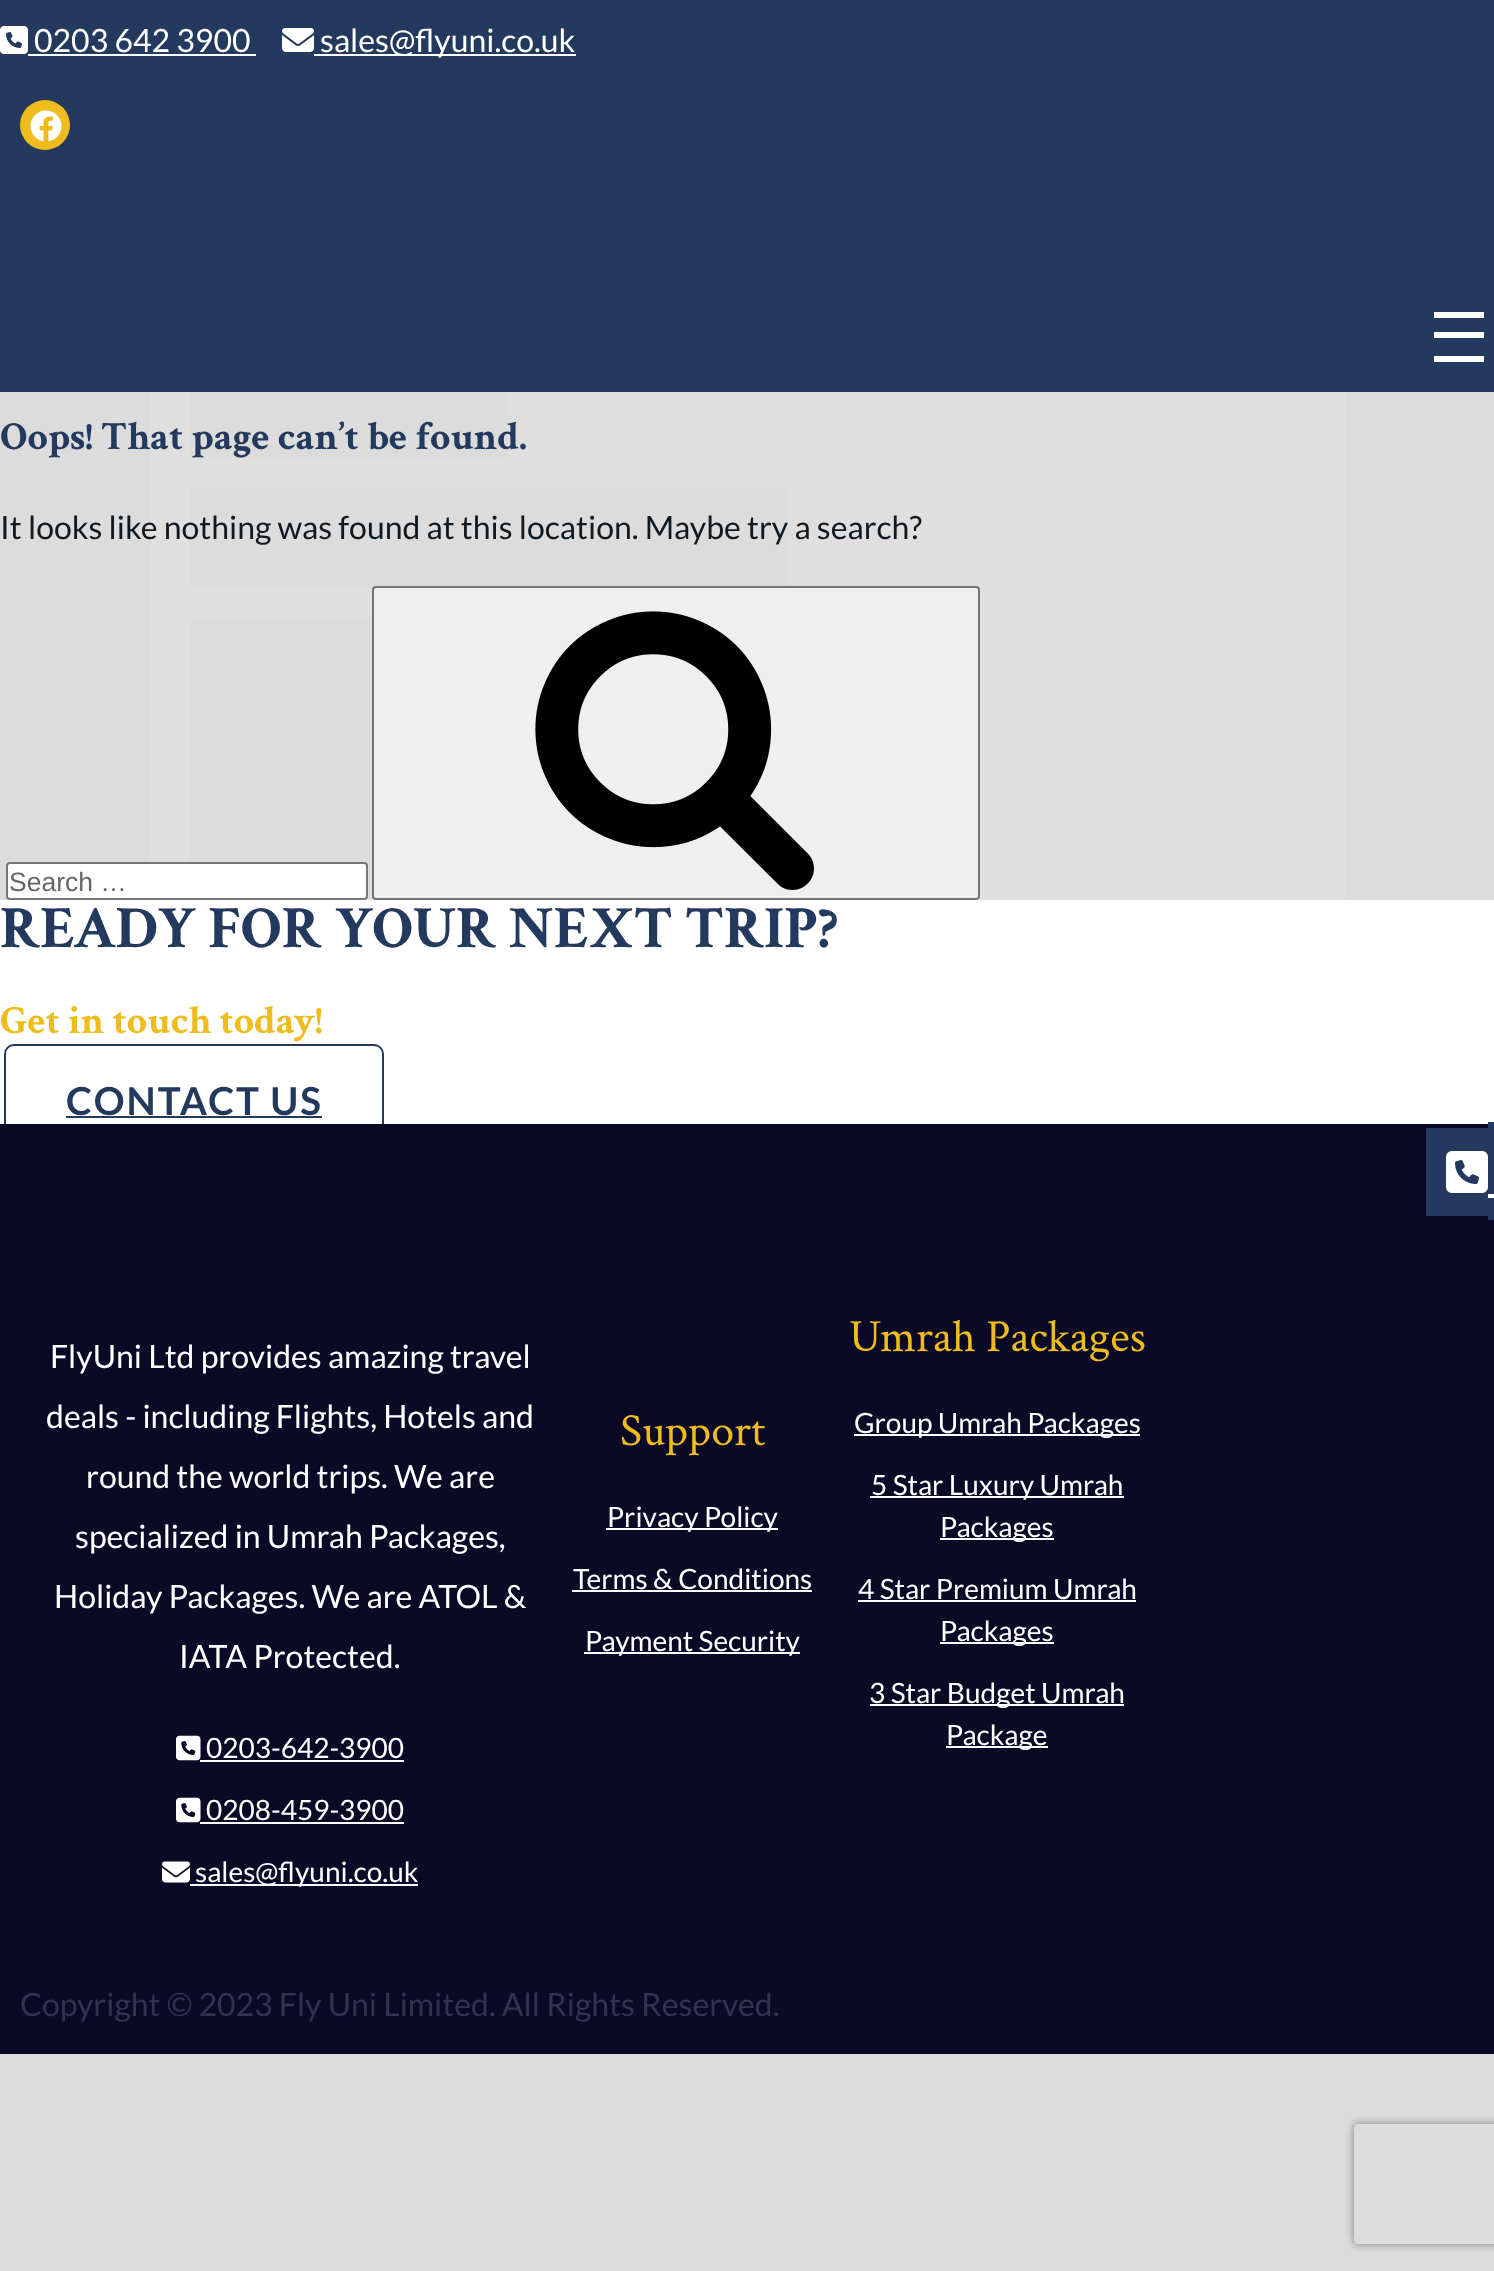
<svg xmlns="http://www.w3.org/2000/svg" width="1494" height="2271">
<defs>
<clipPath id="clip1"><path d="M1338 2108h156v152h-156zm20 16h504c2 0 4 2 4 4v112c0 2-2 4-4 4h-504c-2 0-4-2-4-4v-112c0-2 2-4 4-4z" clip-rule="evenodd"/></clipPath>
</defs>
<rect width="100%" height="100%" fill="#dcdcdc"/>
<rect x="150" y="392" width="1196" height="508" fill="#dfdfdf"/>
<rect x="190" y="358" width="318" height="100" rx="4" fill="#dcdcdc"/>
<rect width="1494" height="392" fill="#23395d"/>
<image x="0" y="26" width="28" height="28" href="media/1.png"/>
<text x="34" y="52" style="font-family:Lato;font-size:32px;fill:#fff">0203 642 3900</text>
<rect x="28" y="54" width="228" height="2" fill="#fff"/>
<image x="282" y="28" width="32" height="24" href="media/2.png"/>
<rect x="314" y="54" width="262" height="2" fill="#fff"/>
<text x="320" y="52" style="font-family:Lato;font-size:32px;fill:#fff">sales@flyuni.co.uk</text>
<circle cx="45" cy="125" r="25" fill="#eebc1d"/>
<image x="30" y="110" width="32" height="32" href="media/3.png"/>
<rect x="1434" y="356" width="50" height="6" fill="#fff"/>
<rect x="1434" y="312" width="50" height="6" fill="#fff"/>
<rect x="1434" y="332" width="50" height="6" fill="#fff"/>
<rect x="190" y="488" width="598" height="100" rx="4" fill="#dcdcdc"/>
<rect x="190" y="618" width="612" height="280" rx="4" fill="#dcdcdc"/>
<text x="0" y="449" style="font-family:Crimson Text;font-size:40px;font-weight:bold;fill:#23395d">Oops! That page can’t be found.</text>
<text x="0" y="539" style="font-family:Lato;font-size:32px;fill:#101820">It looks like nothing was found at this location. Maybe try a search?</text>
<rect x="7" y="863" width="360" height="36" rx="3" fill="#fff" stroke="#767676" stroke-width="2"/>
<text x="9" y="891" style="font-family:Liberation Sans;font-size:26.5px;fill:#666">Search …</text>
<rect x="373" y="587" width="606" height="312" rx="3" fill="#efefef" stroke="#767676" stroke-width="2"/>
<image x="535" y="611" width="279" height="279" href="media/4.png"/>
<rect y="900" width="1494" height="224" fill="#fff"/>
<text x="0" y="947" style="font-family:Crimson Text;font-size:60px;font-weight:bold;fill:#23395d">READY FOR YOUR NEXT TRIP?</text>
<text x="0" y="1033" style="font-family:Crimson Text;font-size:40px;font-weight:bold;fill:#eebc1d">Get in touch today!</text>
<rect x="5" y="1045" width="378" height="108" rx="9" fill="none" stroke="#23395d" stroke-width="2"/>
<text x="66" y="1115" style="font-family:Lato;font-size:38.5px;font-weight:bold;letter-spacing:2px;fill:#23395d">CONTACT US</text>
<rect x="66" y="1116" width="256" height="2" fill="#23395d"/>
<rect y="1124" width="1494" height="930" fill="#0a0a27"/>
<text x="50" y="1368" style="font-family:Lato;font-size:32px;fill:#fff">FlyUni Ltd provides amazing travel</text>
<text x="46" y="1428" style="font-family:Lato;font-size:32px;fill:#fff">deals - including Flights, Hotels and</text>
<text x="86" y="1488" style="font-family:Lato;font-size:32px;fill:#fff">round the world trips. We are</text>
<text x="75" y="1548" style="font-family:Lato;font-size:32px;fill:#fff">specialized in Umrah Packages,</text>
<text x="54" y="1608" style="font-family:Lato;font-size:32px;fill:#fff">Holiday Packages. We are ATOL &amp;</text>
<text x="179" y="1668" style="font-family:Lato;font-size:32px;fill:#fff">IATA Protected.</text>
<rect x="200" y="1760" width="204" height="2" fill="#fff"/>
<image x="176" y="1735" width="25" height="26" href="media/5.png"/>
<text x="206" y="1758" style="font-family:Lato;font-size:28px;fill:#fff">0203-642-3900</text>
<rect x="200" y="1822" width="204" height="2" fill="#fff"/>
<image x="176" y="1797" width="25" height="26" href="media/5.png"/>
<text x="206" y="1820" style="font-family:Lato;font-size:28px;fill:#fff">0208-459-3900</text>
<image x="162" y="1861" width="28" height="22" href="media/6.png"/>
<rect x="190" y="1884" width="228" height="2" fill="#fff"/>
<text x="195" y="1882" style="font-family:Lato;font-size:28px;fill:#fff">sales@flyuni.co.uk</text>
<text x="620" y="1445" style="font-family:Crimson Text;font-size:46px;fill:#eebc1d">Support</text>
<rect x="606" y="1528" width="172" height="2" fill="#fff"/>
<text x="607" y="1527" style="font-family:Lato;font-size:28px;fill:#fff">Privacy Policy</text>
<text x="573" y="1589" style="font-family:Lato;font-size:28px;fill:#fff">Terms &amp; Conditions</text>
<rect x="572" y="1590" width="240" height="2" fill="#fff"/>
<rect x="584" y="1652" width="216" height="2" fill="#fff"/>
<text x="585" y="1651" style="font-family:Lato;font-size:28px;fill:#fff">Payment Security</text>
<text x="849" y="1351" style="font-family:Crimson Text;font-size:46px;fill:#eebc1d">Umrah Packages</text>
<rect x="854" y="1434" width="286" height="2" fill="#fff"/>
<text x="854" y="1433" style="font-family:Lato;font-size:28px;fill:#fff">Group Umrah Packages</text>
<rect x="870" y="1496" width="254" height="2" fill="#fff"/>
<text x="871" y="1495" style="font-family:Lato;font-size:28px;fill:#fff">5 Star Luxury Umrah</text>
<rect x="940" y="1538" width="114" height="2" fill="#fff"/>
<text x="940" y="1537" style="font-family:Lato;font-size:28px;fill:#fff">Packages</text>
<text x="858" y="1599" style="font-family:Lato;font-size:28px;fill:#fff">4 Star Premium Umrah</text>
<rect x="858" y="1600" width="278" height="2" fill="#fff"/>
<rect x="940" y="1642" width="114" height="2" fill="#fff"/>
<text x="940" y="1641" style="font-family:Lato;font-size:28px;fill:#fff">Packages</text>
<rect x="870" y="1704" width="254" height="2" fill="#fff"/>
<text x="869" y="1703" style="font-family:Lato;font-size:28px;fill:#fff">3 Star Budget Umrah</text>
<rect x="946" y="1746" width="102" height="2" fill="#fff"/>
<text x="946" y="1745" style="font-family:Lato;font-size:28px;fill:#fff">Package</text>
<text x="20" y="2016" style="font-family:Lato;font-size:32px;fill:#333350">Copyright © 2023 Fly Uni Limited. All Rights Reserved.</text>
<rect x="1426" y="1128" width="62" height="88" fill="#23395d"/>
<rect x="1488" y="1122" width="6" height="98" fill="#23395d"/>
<image x="1446" y="1151" width="42" height="42" href="media/7.png"/>
<rect x="1488" y="1194" width="6" height="4" fill="#fff"/>
<g clip-path="url(#clip1)">
<rect x="1354" y="2124" width="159" height="120" rx="4" fill="#808080" filter="blur(5px)"/>
</g>
</svg>
